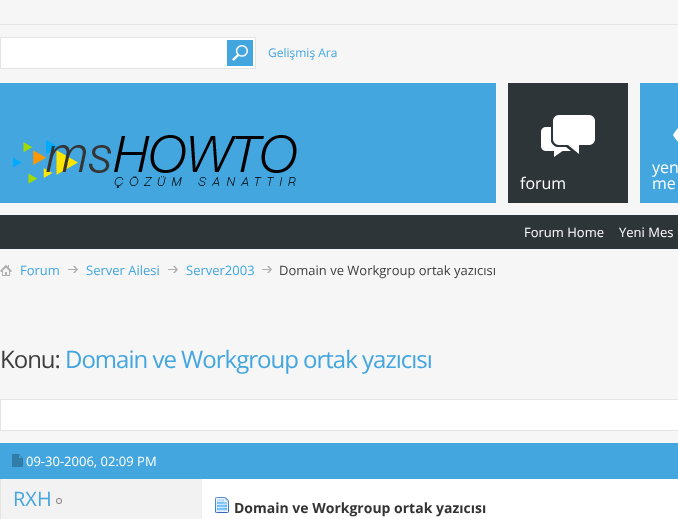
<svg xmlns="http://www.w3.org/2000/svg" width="678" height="519">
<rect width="100%" height="100%" fill="#f6f6f6"/>
<rect y="24" width="678" height="1" fill="#e4e4e4"/>
<rect x="0.5" y="37.5" width="255" height="31" fill="#fff" stroke="#e4e4e4"/>
<image x="227" y="40" width="26" height="26" href="media/1.png"/>
<text x="268" y="57" style="font-family:Open Sans;font-size:12px;fill:#43a6df">Gelişmiş Ara</text>
<rect y="83" width="678" height="120" fill="#43a6df"/>
<image x="13" y="135" width="284" height="53" href="media/2.png"/>
<rect x="496" y="83" width="12" height="120" fill="#f6f6f6"/>
<rect x="508" y="83" width="120" height="120" fill="#2e3539"/>
<image x="541" y="115" width="54" height="42" href="media/3.png"/>
<text x="520" y="189" style="font-family:Open Sans;font-size:16px;fill:#fff">forum</text>
<rect x="628" y="83" width="12" height="120" fill="#f6f6f6"/>
<image x="673" y="128" width="5" height="14" href="media/4.png"/>
<text x="652" y="173" style="font-family:Open Sans;font-size:16px;fill:#fff">yen</text>
<text x="652" y="189" style="font-family:Open Sans;font-size:16px;fill:#fff">me</text>
<rect y="215" width="678" height="34" fill="#2e3539"/>
<text x="524" y="237" style="font-family:Open Sans;font-size:13px;fill:#fff">Forum Home</text>
<text x="619" y="237" style="font-family:Open Sans;font-size:13px;fill:#fff">Yeni Mes</text>
<image x="0" y="265" width="12" height="11" href="media/5.png"/>
<image x="68" y="266" width="10" height="7" href="media/6.png"/>
<text x="20" y="275" style="font-family:Open Sans;font-size:13px;fill:#43a6df">Forum</text>
<image x="168" y="266" width="10" height="7" href="media/6.png"/>
<text x="86" y="275" style="font-family:Open Sans;font-size:13px;fill:#43a6df">Server Ailesi</text>
<image x="262" y="266" width="10" height="7" href="media/6.png"/>
<text x="186" y="275" style="font-family:Open Sans;font-size:13px;fill:#43a6df">Server2003</text>
<text x="279" y="275" style="font-family:Open Sans;font-size:13px;fill:#3e3e3e">Domain ve Workgroup ortak yazıcısı</text>
<text x="0" y="368" style="font-family:Open Sans;font-size:24px;letter-spacing:-1px;fill:#3e3e3e">Konu:</text>
<text x="65" y="368" style="font-family:Open Sans;font-size:24px;letter-spacing:-1px;fill:#43a6df">Domain ve Workgroup ortak yazıcısı</text>
<rect x="0.5" y="399.5" width="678" height="31" fill="#fff" stroke="#e4e4e4"/>
<rect x="0.5" y="443.5" width="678" height="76" fill="none" stroke="#e4e4e4"/>
<rect y="443" width="678" height="36" fill="#43a6df"/>
<image x="12" y="454" width="11" height="13" href="media/7.png"/>
<text x="26" y="466" style="font-family:Open Sans;font-size:13px;fill:#fff">09-30-2006, 02:09 PM</text>
<rect x="1" y="479" width="200" height="40" fill="#f2f2f2"/>
<text x="13" y="506" style="font-family:Open Sans;font-size:20px;fill:#43a6df">RXH</text>
<image x="56" y="498" width="6" height="6" href="media/8.png"/>
<rect x="202" y="479" width="476" height="40" fill="#fff"/>
<rect x="201" y="479" width="1" height="40" fill="#efefef"/>
<image x="215" y="497" width="14" height="16" href="media/9.png"/>
<text x="234" y="513" style="font-family:Open Sans;font-size:14px;font-weight:bold;fill:#333">Domain ve Workgroup ortak yazıcısı</text>
</svg>
